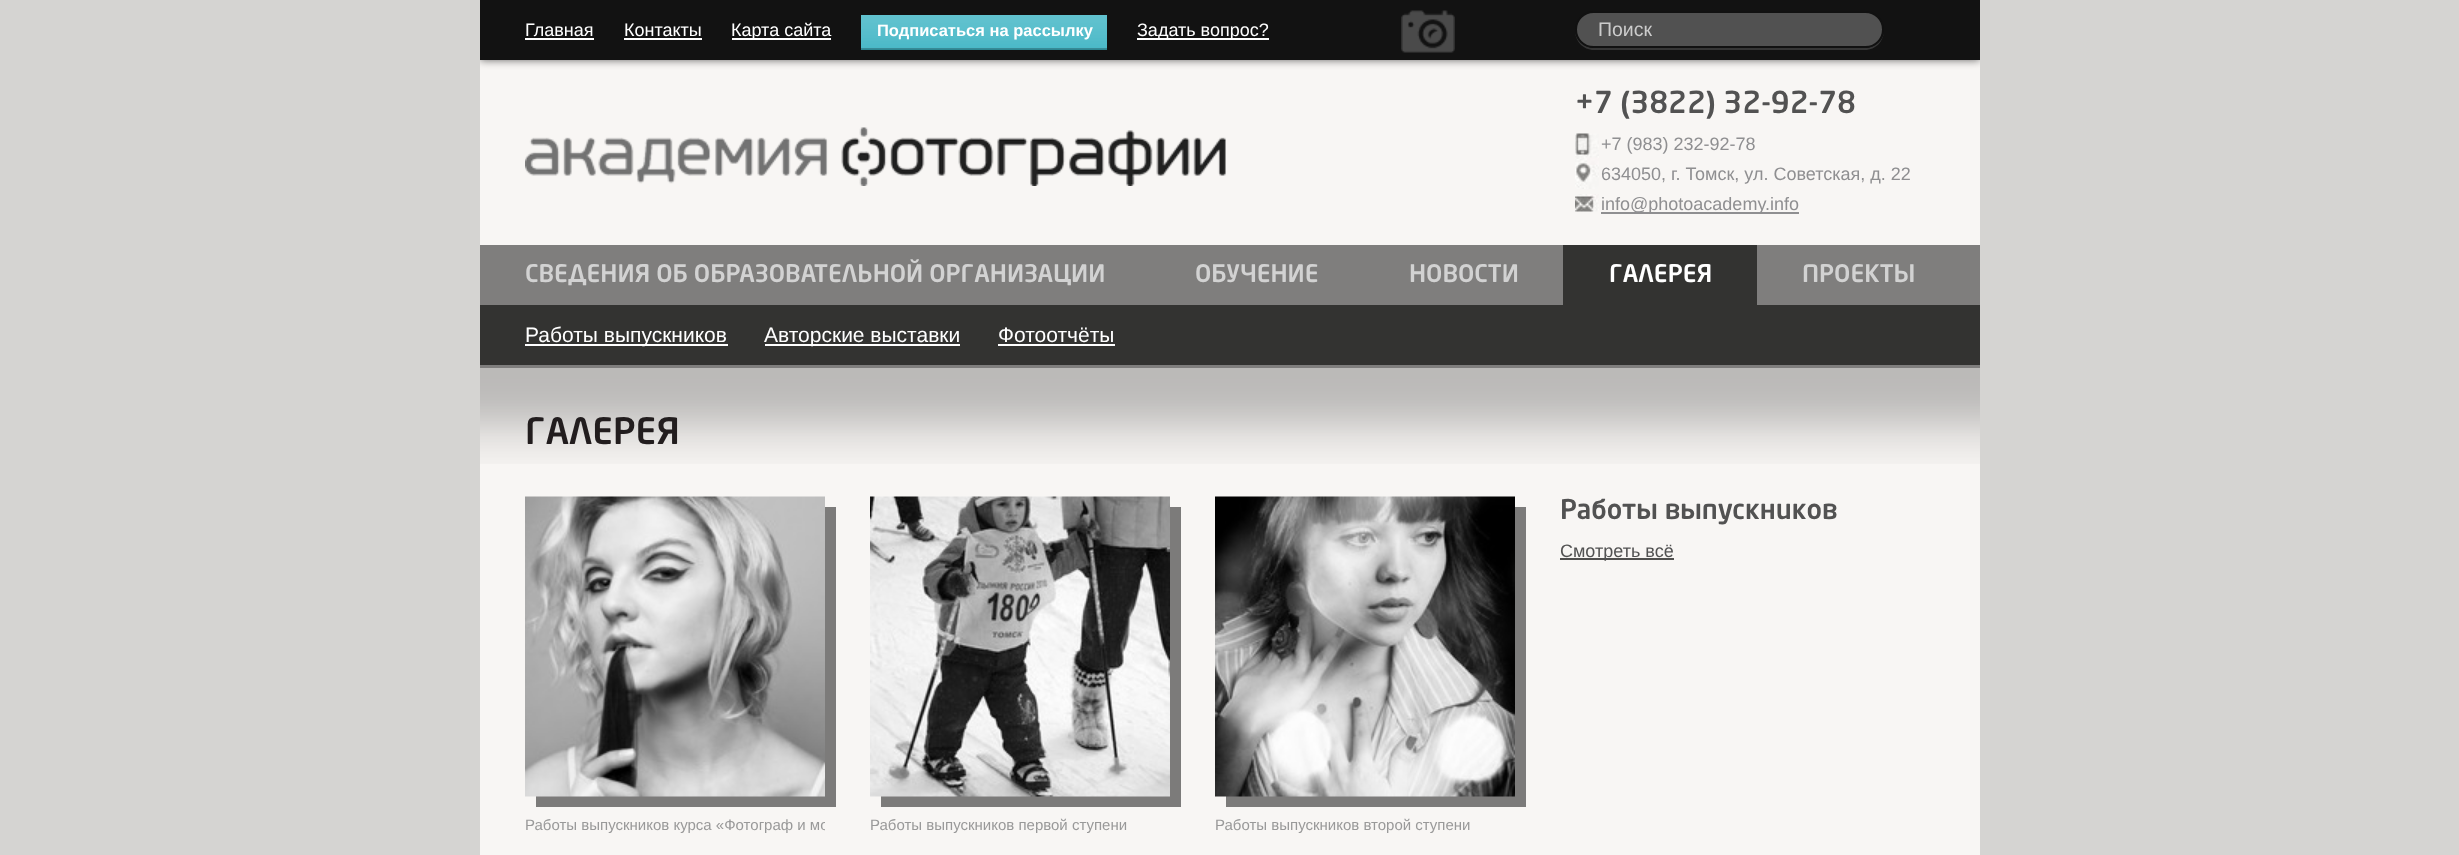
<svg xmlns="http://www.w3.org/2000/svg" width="2459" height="855">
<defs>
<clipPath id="clip1"><rect x="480" y="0" width="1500" height="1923"/></clipPath>
<clipPath id="clip2"><rect x="525" y="816" width="300" height="30"/></clipPath>
</defs>
<rect width="100%" height="100%" fill="#d5d4d2"/>
<rect x="480" y="60" width="1500" height="185" fill="#f8f6f4"/>
<g clip-path="url(#clip1)">
<rect x="480" width="1500" height="60" fill="#00000099" filter="blur(4px)"/>
</g>
<rect x="480" width="1500" height="60" fill="#121212"/>
<text x="525" y="36" style="font-family:Liberation Sans;font-size:18px;fill:#fff">Главная</text>
<rect x="525" y="38" width="69" height="2" fill="#fff"/>
<text x="624" y="36" style="font-family:Liberation Sans;font-size:18px;fill:#fff">Контакты</text>
<rect x="624" y="38" width="78" height="2" fill="#fff"/>
<rect x="732" y="38" width="99" height="2" fill="#fff"/>
<text x="731" y="36" style="font-family:Liberation Sans;font-size:18px;fill:#fff">Карта сайта</text>
<rect x="861" y="15" width="246" height="35" fill="#2daebf"/>
<image x="861" y="15" width="246" height="35" href="media/1.png"/>
<rect x="861" y="48" width="246" height="2" fill="#00000040"/>
<text x="877" y="36" style="font-family:Liberation Sans;font-size:16.5px;font-weight:bold;fill:#fff">Подписаться на рассылку</text>
<rect x="1137" y="38" width="132" height="2" fill="#fff"/>
<text x="1137" y="36" style="font-family:Liberation Sans;font-size:18px;fill:#fff">Задать вопрос?</text>
<image x="1401" y="10" width="54" height="43" href="media/2.png"/>
<path d="M1575 30c0 11 8 20 19 20h271c11 0 19-9 19-20c0 10-9 18-19 18h-271c-10 0-19-8-19-18z" fill="#363636"/>
<rect x="1576" y="12" width="307" height="35" rx="17.5" fill="#515151" stroke="#111" stroke-width="2"/>
<text x="1598" y="36" style="font-family:Liberation Sans;font-size:19.5px;fill:#ccc">Поиск</text>
<image x="525" y="127" width="701" height="59" href="media/3.png"/>
<text x="1575" y="113" style="font-family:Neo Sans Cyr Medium;font-size:30px;font-weight:500;fill:#525252">+7 (3822) 32-92-78</text>
<image x="1575" y="133" width="24" height="26" href="media/4.png"/>
<text x="1601" y="150" style="font-family:Liberation Sans;font-size:18px;fill:#8f8f91">+7 (983) 232-92-78</text>
<image x="1575" y="159" width="24" height="30" href="media/5.png"/>
<text x="1601" y="180" style="font-family:Liberation Sans;font-size:18px;fill:#8f8f91">634050, г. Томск, ул. Советская, д. 22</text>
<image x="1575" y="194" width="24" height="18" href="media/6.png"/>
<rect x="1601" y="212" width="198" height="2" fill="#8f8f91"/>
<text x="1601" y="210" style="font-family:Liberation Sans;font-size:18px;fill:#8f8f91">info@photoacademy.info</text>
<rect x="480" y="365" width="1500" height="3" fill="#7f7e7d"/>
<rect x="480" y="245" width="1500" height="60" fill="#7f7e7d"/>
<text x="525" y="282" style="font-family:Neo Sans Cyr Medium;font-size:24px;font-weight:500;fill:#d2d2d2">СВЕДЕНИЯ ОБ ОБРАЗОВАТЕЛЬНОЙ ОРГАНИЗАЦИИ</text>
<rect x="1563" y="245" width="194" height="60" fill="#333331"/>
<text x="1609" y="282" style="font-family:Neo Sans Cyr Medium;font-size:24px;font-weight:500;fill:#fff">ГАЛЕРЕЯ</text>
<rect x="480" y="305" width="1500" height="60" fill="#333331"/>
<rect x="525" y="344" width="203" height="2" fill="#fff"/>
<text x="525" y="342" style="font-family:Liberation Sans;font-size:21px;fill:#fff">Работы выпускников</text>
<rect x="765" y="344" width="195" height="2" fill="#fff"/>
<text x="764" y="342" style="font-family:Liberation Sans;font-size:21px;fill:#fff">Авторские выставки</text>
<text x="998" y="342" style="font-family:Liberation Sans;font-size:21px;fill:#fff">Фотоотчёты</text>
<rect x="998" y="344" width="117" height="2" fill="#fff"/>
<text x="1195" y="282" style="font-family:Neo Sans Cyr Medium;font-size:24px;font-weight:500;fill:#d2d2d2">ОБУЧЕНИЕ</text>
<text x="1409" y="282" style="font-family:Neo Sans Cyr Medium;font-size:24px;font-weight:500;fill:#d2d2d2">НОВОСТИ</text>
<text x="1802" y="282" style="font-family:Neo Sans Cyr Medium;font-size:24px;font-weight:500;fill:#d2d2d2">ПРОЕКТЫ</text>
<rect x="480" y="464" width="1500" height="391" fill="#f8f6f4"/>
<image x="480" y="368" width="1500" height="96" href="media/7.png"/>
<text x="525" y="444" style="font-family:Neo Sans Cyr Medium;font-size:36px;font-weight:500;fill:#221d1e">ГАЛЕРЕЯ</text>
<text x="1560" y="519" style="font-family:Neo Sans Cyr Medium;font-size:27px;font-weight:500;fill:#525252">Работы выпускников</text>
<rect x="1560" y="558" width="114" height="2" fill="#504f4e"/>
<text x="1560" y="557" style="font-family:Liberation Sans;font-size:18px;fill:#525252">Смотреть всё</text>
<path d="M536 796v11h300v-300h-11v289z" fill="#7c7b7a"/>
<image x="525" y="496" width="300" height="301" href="media/8.png"/>
<g clip-path="url(#clip2)">
<text x="525" y="830" style="font-family:Liberation Sans;font-size:15px;fill:#999">Работы выпускников курса «Фотограф и мо</text>
</g>
<path d="M881 796v11h300v-300h-11v289z" fill="#7c7b7a"/>
<image x="870" y="496" width="300" height="301" href="media/9.png"/>
<text x="870" y="830" style="font-family:Liberation Sans;font-size:15px;fill:#999">Работы выпускников первой ступени</text>
<path d="M1226 796v11h300v-300h-11v289z" fill="#7c7b7a"/>
<image x="1215" y="496" width="300" height="301" href="media/10.png"/>
<text x="1215" y="830" style="font-family:Liberation Sans;font-size:15px;fill:#999">Работы выпускников второй ступени</text>
</svg>
